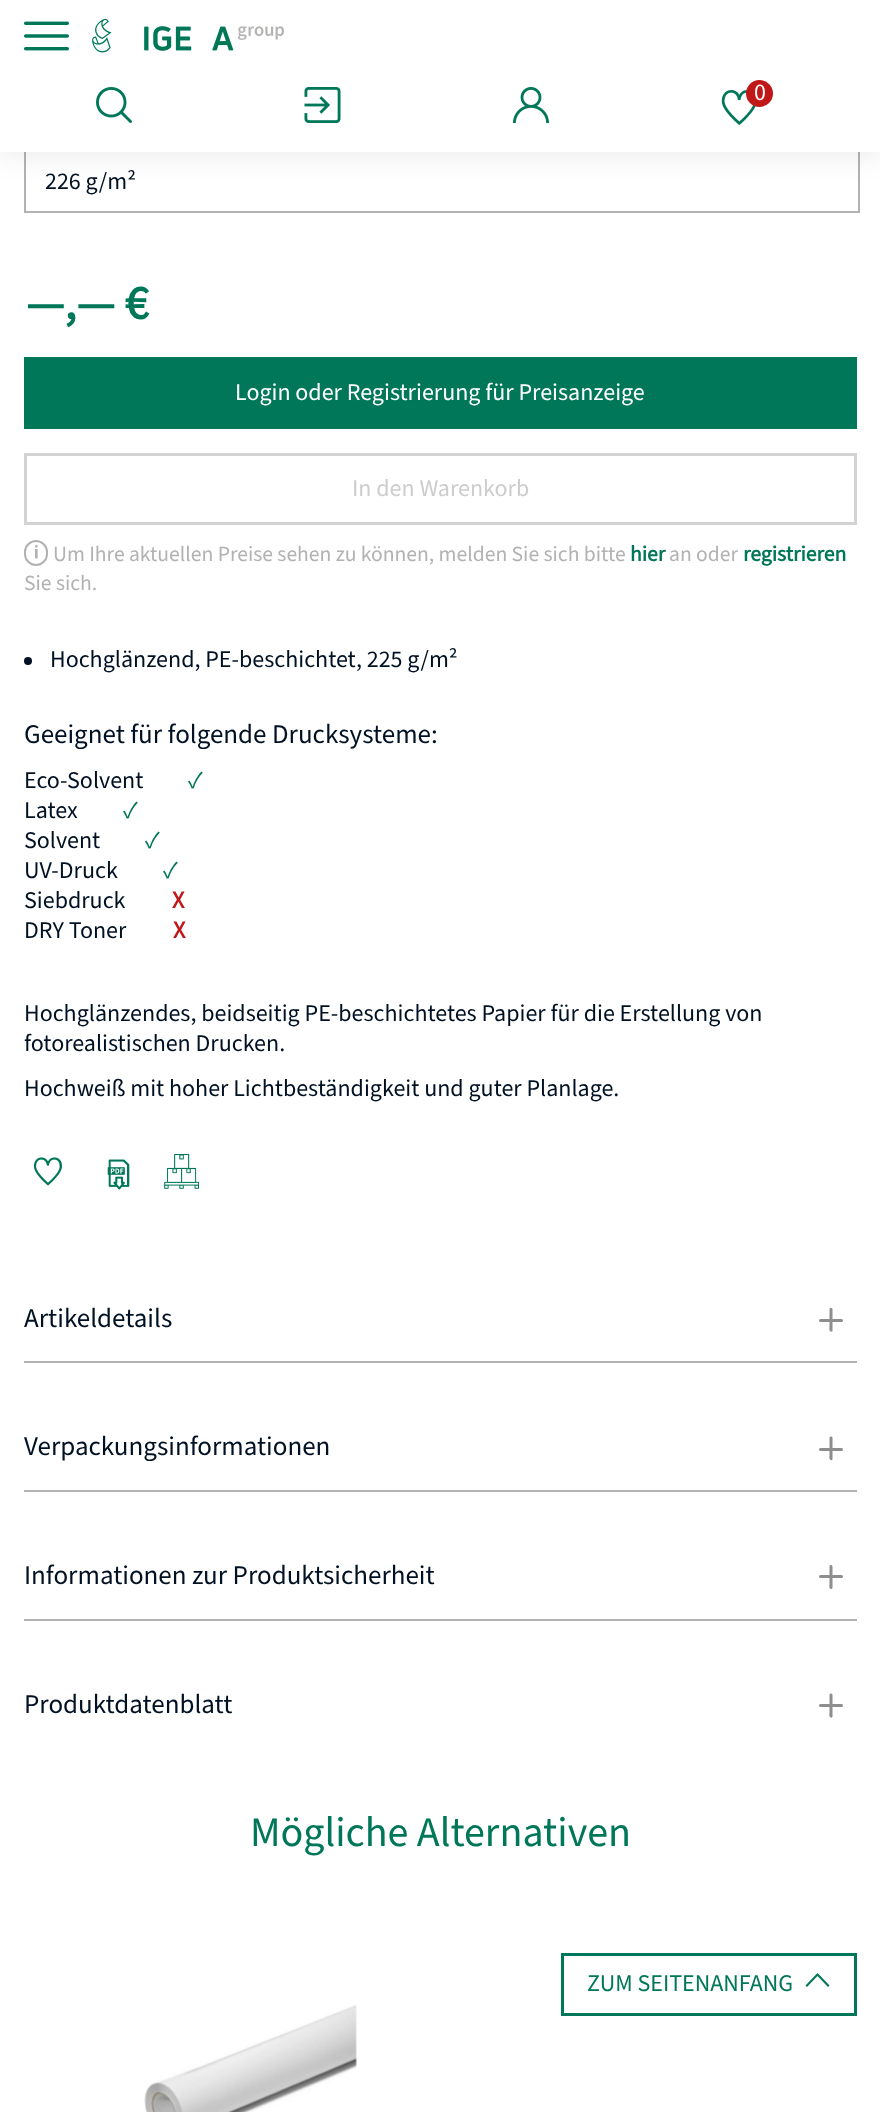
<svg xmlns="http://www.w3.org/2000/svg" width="880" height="2112">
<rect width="100%" height="100%" fill="#fff"/>
<rect x="25" y="151" width="834" height="61" fill="none" stroke="#b2b2b2" stroke-width="2"/>
<rect width="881" height="152" fill="#0000001a" filter="blur(15px)"/>
<rect width="880" height="152" fill="#fff"/>
<image x="24" y="21" width="45" height="30" href="media/1.png"/>
<image x="92" y="18" width="192" height="35" href="media/2.png"/>
<image x="96" y="87" width="36" height="36" href="media/3.png"/>
<image x="304" y="87" width="37" height="36" href="media/4.png"/>
<image x="513" y="87" width="36" height="36" href="media/5.png"/>
<image x="721" y="90" width="35" height="35" href="media/6.png"/>
<circle cx="759.5" cy="93.5" r="13.5" fill="#c01818"/>
<text x="754" y="100" style="font-family:Source Sans Pro;font-size:24px;fill:#fff">0</text>
<rect x="562.5" y="1954.5" width="293" height="60" fill="none" stroke="#007758" stroke-width="3"/>
<text x="587" y="1991" style="font-family:Source Sans Pro;font-size:24px;fill:#007758">ZUM SEITENANFANG</text>
<path d="M817.5 1973l-12 12.5l1.5 1.5l10.5-11l10.5 11l1.5-1.5z" fill="#007758"/>
<text x="45" y="189" style="font-family:Source Sans Pro;font-size:24px;fill:#001123">226 g/m²</text>
<text x="26" y="319" style="font-family:Source Sans Pro;font-size:48px;font-weight:bold;fill:#007758">—,— €</text>
<rect x="24" y="357" width="833" height="72" fill="#007758"/>
<text x="235" y="400" style="font-family:Source Sans Pro;font-size:24px;fill:#fff">Login oder Registrierung für Preisanzeige</text>
<rect x="25.5" y="454.5" width="830" height="69" fill="none" stroke="#d3d3d3" stroke-width="3"/>
<text x="352" y="496" style="font-family:Source Sans Pro;font-size:24px;fill:#cdcdcd">In den Warenkorb</text>
<rect x="25" y="541" width="22" height="24" rx="11" fill="none" stroke="#b2b2b2" stroke-width="2"/>
<image x="35" y="545" width="3" height="14" href="media/7.png"/>
<text x="53" y="561" style="font-family:Source Sans Pro;font-size:21.6px;fill:#b2b2b2">Um Ihre aktuellen Preise sehen zu können, melden Sie sich bitte</text>
<text x="630" y="561" style="font-family:Source Sans Pro;font-size:21.6px;font-weight:bold;fill:#007758">hier</text>
<text x="669" y="561" style="font-family:Source Sans Pro;font-size:21.6px;fill:#b2b2b2">an oder</text>
<text x="743" y="561" style="font-family:Source Sans Pro;font-size:21.6px;font-weight:bold;fill:#007758">registrieren</text>
<text x="24" y="590" style="font-family:Source Sans Pro;font-size:21.6px;fill:#b2b2b2">Sie sich.</text>
<circle cx="28" cy="661" r="4" fill="#001123"/>
<text x="50" y="667" style="font-family:Source Sans Pro;font-size:24px;fill:#001123">Hochglänzend, PE-beschichtet, 225 g/m²</text>
<text x="24" y="743" style="font-family:Source Sans Pro;font-size:27px;fill:#001123">Geeignet für folgende Drucksysteme:</text>
<text x="24" y="788" style="font-family:Source Sans Pro;font-size:24px;fill:#001123">Eco-Solvent</text>
<text x="188" y="788" style="font-family:Source Sans Pro;font-size:24px;fill:#007758">✓</text>
<text x="24" y="818" style="font-family:Source Sans Pro;font-size:24px;fill:#001123">Latex</text>
<text x="123" y="818" style="font-family:Source Sans Pro;font-size:24px;fill:#007758">✓</text>
<text x="24" y="848" style="font-family:Source Sans Pro;font-size:24px;fill:#001123">Solvent</text>
<text x="145" y="848" style="font-family:Source Sans Pro;font-size:24px;fill:#007758">✓</text>
<text x="24" y="878" style="font-family:Source Sans Pro;font-size:24px;fill:#001123">UV-Druck</text>
<text x="163" y="878" style="font-family:Source Sans Pro;font-size:24px;fill:#007758">✓</text>
<text x="24" y="908" style="font-family:Source Sans Pro;font-size:24px;fill:#001123">Siebdruck</text>
<text x="172" y="908" style="font-family:Source Sans Pro;font-size:24px;font-weight:bold;fill:#c01818">X</text>
<text x="24" y="938" style="font-family:Source Sans Pro;font-size:24px;fill:#001123">DRY Toner</text>
<text x="173" y="938" style="font-family:Source Sans Pro;font-size:24px;font-weight:bold;fill:#c01818">X</text>
<text x="24" y="1021" style="font-family:Source Sans Pro;font-size:24px;fill:#001123">Hochglänzendes, beidseitig PE-beschichtetes Papier für die Erstellung von</text>
<text x="24" y="1051" style="font-family:Source Sans Pro;font-size:24px;fill:#001123">fotorealistischen Drucken.</text>
<text x="24" y="1096" style="font-family:Source Sans Pro;font-size:24px;fill:#001123">Hochweiß mit hoher Lichtbeständigkeit und guter Planlage.</text>
<image x="33" y="1157" width="29" height="29" href="media/8.png"/>
<image x="107" y="1159" width="23" height="31" href="media/9.png"/>
<image x="164" y="1154" width="35" height="35" href="media/10.png"/>
<rect x="24" y="1361" width="833" height="2" fill="#b2b2b2"/>
<text x="24" y="1327" style="font-family:Source Sans Pro;font-size:27px;fill:#001123">Artikeldetails</text>
<rect x="819" y="1319" width="24" height="3" rx="1.5" fill="#8e8e8e"/>
<path d="M832.5 1309v22c-.5 1-2 1-2.5 0c-1-1-.5-4.5-.5-4.5v-17.5c0-1.5 3-1.5 3 0z" fill="#8e8e8e"/>
<rect x="24" y="1490" width="833" height="2" fill="#b2b2b2"/>
<text x="24" y="1455" style="font-family:Source Sans Pro;font-size:27px;fill:#001123">Verpackungsinformationen</text>
<rect x="819" y="1448" width="24" height="3" rx="1.5" fill="#8e8e8e"/>
<path d="M832.5 1438v21.5c-.5 1-2 1-2.5 0c-1-1-.5-4-.5-4v-17.5c0-2 3-2 3 0z" fill="#8e8e8e"/>
<rect x="24" y="1619" width="833" height="2" fill="#b2b2b2"/>
<text x="24" y="1584" style="font-family:Source Sans Pro;font-size:27px;fill:#001123">Informationen zur Produktsicherheit</text>
<rect x="819" y="1575" width="24" height="3" rx="1.5" fill="#8e8e8e"/>
<path d="M832.5 1566.5v21.5c-.5 1-2 1.5-2.5 .5c-1-1-.5-4.5-.5-4.5v-17.5c0-2 3-2 3 0z" fill="#8e8e8e"/>
<text x="24" y="1713" style="font-family:Source Sans Pro;font-size:27px;fill:#001123">Produktdatenblatt</text>
<rect x="819" y="1704" width="24" height="3" rx="1.5" fill="#8e8e8e"/>
<path d="M832.5 1695v21.5c-.5 1.5-2 1.5-2.5 .5c-1-1-.5-4.5-.5-4.5v-17.5c0-2 3-2 3 0z" fill="#8e8e8e"/>
<text x="250" y="1846" style="font-family:Source Sans Pro;font-size:42px;fill:#007758">Mögliche Alternativen</text>
<image x="144" y="2005" width="213" height="107" href="media/11.png"/>
</svg>
